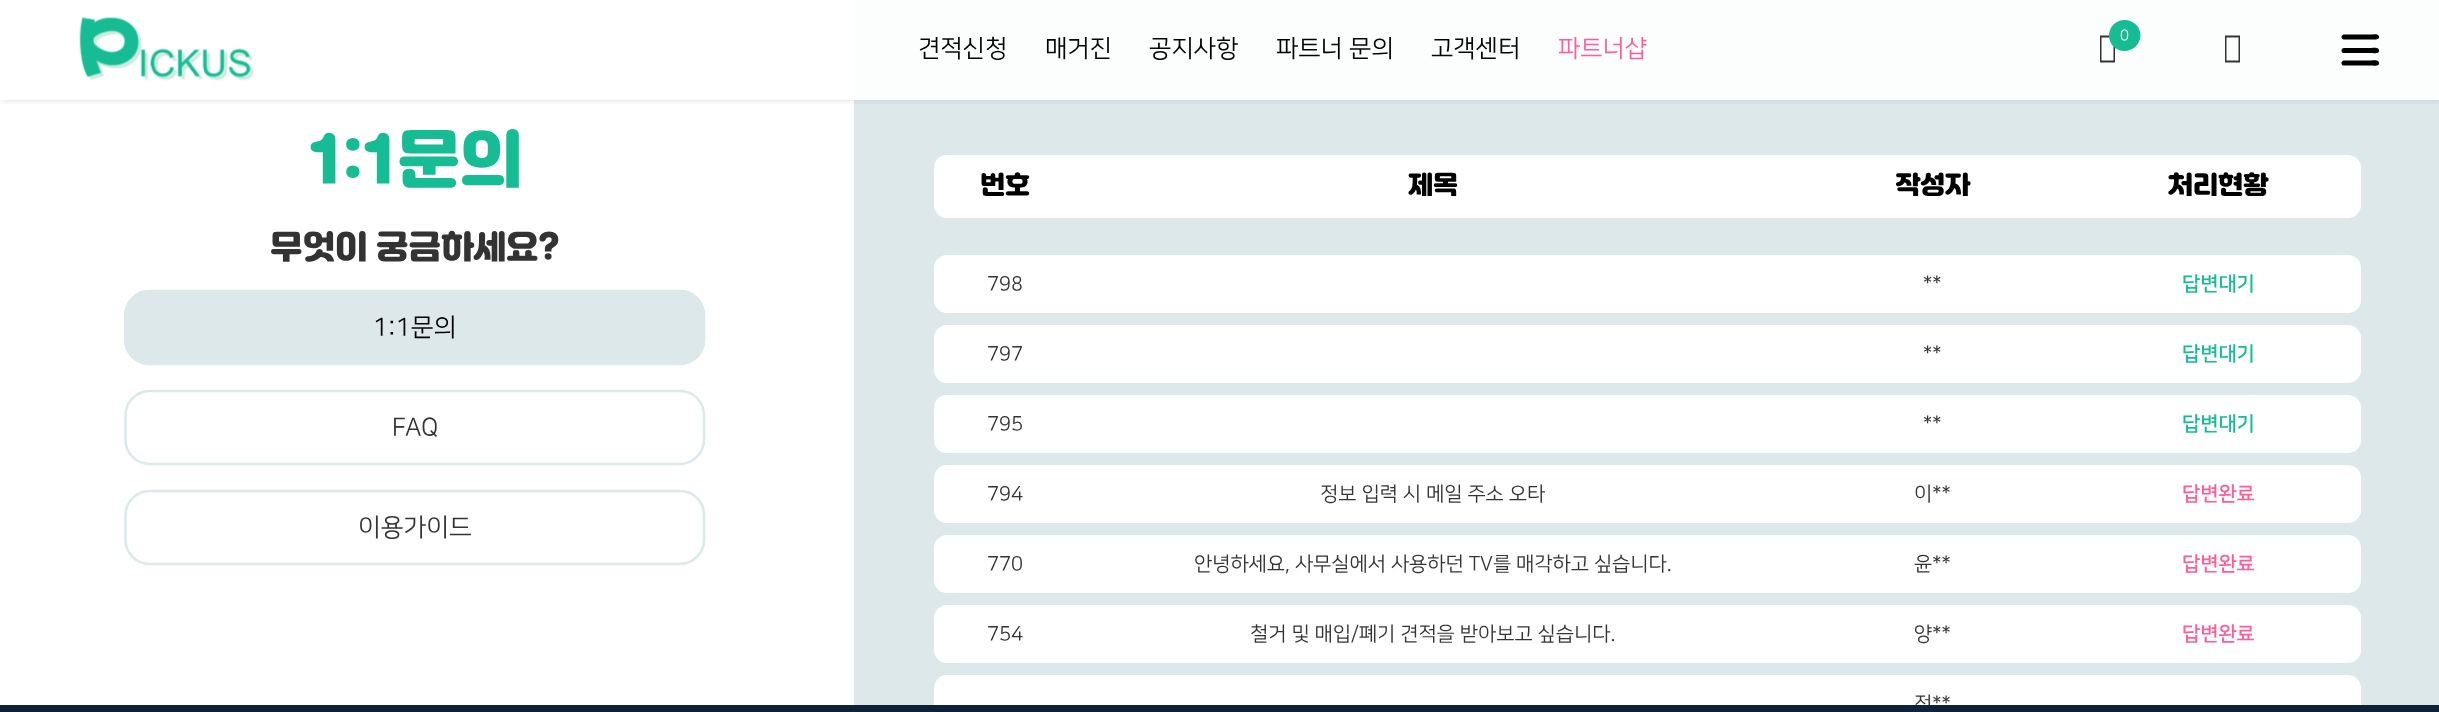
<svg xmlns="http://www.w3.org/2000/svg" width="2439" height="712">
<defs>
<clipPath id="clip1"><rect x="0" y="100" width="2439" height="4"/></clipPath>
<clipPath id="clip2"><rect x="1790" y="675" width="285" height="30"/></clipPath>
</defs>
<rect width="100%" height="100%" fill="#fff"/>
<rect x="854" y="100" width="1585" height="605" fill="#dce8ea"/>
<rect x="854" width="1585" height="100" fill="#fcfdfd"/>
<g clip-path="url(#clip1)">
<rect x="1" y="1" width="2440" height="100" fill="#0000001a" filter="blur(3px)"/>
</g>
<image x="79" y="17" width="175" height="64" href="media/1.png"/>
<text x="918" y="56" style="font-family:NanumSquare;font-size:24.5px;fill:#000">견적신청</text>
<text x="1045" y="56" style="font-family:NanumSquare;font-size:24.5px;fill:#000">매거진</text>
<text x="1149" y="56" style="font-family:NanumSquare;font-size:24.5px;fill:#000">공지사항</text>
<text x="1276" y="56" style="font-family:NanumSquare;font-size:24.5px;fill:#000">파트너 문의</text>
<text x="1431" y="56" style="font-family:NanumSquare;font-size:24.5px;fill:#000">고객센터</text>
<text x="1558" y="56" style="font-family:NanumSquare;font-size:24.5px;fill:#ff5c99">파트너샵</text>
<path d="M2100 62.5v-27h15v27zm1.5-2h12v-23h-12z" fill="#333"/>
<path d="M2124.5 20c9 0 16 7 16 15.5c-.5 9-7.5 15.5-16 15.5c-8.5 0-15.5-6.5-15.5-15.5c0-8.5 7-15.5 15.5-15.5z" fill="#15bc94"/>
<text x="2120" y="40" style="font-family:NanumSquare;font-size:15px;fill:#fff">0</text>
<path d="M2225 62.5v-27h15v27zm1.5-2h12v-23h-12z" fill="#333"/>
<path d="M2344 34.5h27c1.5 0 7.5-1.5 8 2c1 4-6.5 3-8 3h-27.5c-3-1-2.5-5 .5-5zm0 13.5h27c1.5 0 7.5-1 8 2c1 4.5-6.5 3-8 3h-27.5c-3-.5-2.5-5 .5-5zm0 12.5h27c1.5 0 7.5-1 8 2c1 4.5-6.5 3-8 3h-27.5c-3-.5-2.5-5 .5-5z" fill="#000"/>
<text x="308" y="183" style="font-family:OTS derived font;font-size:62.5px;font-weight:bold;fill:#15bc94">1:1문의</text>
<text x="270" y="259" style="font-family:OTS derived font;font-size:32.5px;font-weight:bold;fill:#333">무엇이</text>
<text x="376" y="259" style="font-family:OTS derived font;font-size:32.5px;font-weight:bold;fill:#333">궁금하세요?</text>
<path d="M149 290h531c14 0 25 11 25 25v25c0 14-11 25-25 25h-531c-13 0-25-11-25-25v-25c0-14 12-25 25-25z" fill="#dce8ea"/>
<path d="M149.5 291h530.5c13.5 0 24 11 24 24v25c0 13-11 24-24 24h-530.5c-13 0-24-11-24-24v-25c0-13 11-24 24-24z" fill="none" stroke="#dce8ea" stroke-width="2.5"/>
<text x="373" y="335" style="font-family:NanumSquare;font-size:25px;fill:#000">1:1문의</text>
<path d="M149.5 391h530.5c13.5 0 24 11 24 24v25c0 13-11 24-24 24h-530.5c-13 0-24-11-24-24v-25c0-13 11-24 24-24z" fill="none" stroke="#dce8ea" stroke-width="2.5"/>
<text x="392" y="435" style="font-family:NanumSquare;font-size:25px;fill:#333">FAQ</text>
<path d="M149.5 491h530.5c13.5 0 24 11 24 24v25c0 13-11 24-24 24h-530.5c-13 0-24-11-24-24v-25c0-13 11-24 24-24z" fill="none" stroke="#dce8ea" stroke-width="2.5"/>
<text x="358" y="535" style="font-family:NanumSquare;font-size:25px;fill:#333">이용가이드</text>
<rect x="934" y="155" width="1427" height="63" rx="13" fill="#fff"/>
<text x="980" y="194" style="font-family:OTS derived font;font-size:25px;font-weight:bold;fill:#000">번호</text>
<text x="1408" y="194" style="font-family:OTS derived font;font-size:25px;font-weight:bold;fill:#000">제목</text>
<text x="1895" y="194" style="font-family:OTS derived font;font-size:25px;font-weight:bold;fill:#000">작성자</text>
<text x="2168" y="194" style="font-family:OTS derived font;font-size:25px;font-weight:bold;fill:#000">처리현황</text>
<rect x="934" y="255" width="1427" height="58" rx="13" fill="#fff"/>
<text x="987" y="290" style="font-family:NanumSquare;font-size:20px;fill:#333">798</text>
<text x="1923" y="290" style="font-family:NanumSquare;font-size:20px;fill:#333">**</text>
<text x="2182" y="290" style="font-family:NanumSquare;font-size:20px;font-weight:bold;fill:#15bc94">답변대기</text>
<rect x="934" y="325" width="1427" height="58" rx="13" fill="#fff"/>
<text x="987" y="360" style="font-family:NanumSquare;font-size:20px;fill:#333">797</text>
<text x="1923" y="360" style="font-family:NanumSquare;font-size:20px;fill:#333">**</text>
<text x="2182" y="360" style="font-family:NanumSquare;font-size:20px;font-weight:bold;fill:#15bc94">답변대기</text>
<rect x="934" y="395" width="1427" height="58" rx="13" fill="#fff"/>
<text x="987" y="430" style="font-family:NanumSquare;font-size:20px;fill:#333">795</text>
<text x="1923" y="430" style="font-family:NanumSquare;font-size:20px;fill:#333">**</text>
<text x="2182" y="430" style="font-family:NanumSquare;font-size:20px;font-weight:bold;fill:#15bc94">답변대기</text>
<rect x="934" y="465" width="1427" height="58" rx="13" fill="#fff"/>
<text x="987" y="500" style="font-family:NanumSquare;font-size:20px;fill:#333">794</text>
<text x="1320" y="500" style="font-family:NanumSquare;font-size:20px;fill:#333">정보 입력 시 메일 주소 오타</text>
<text x="1914" y="500" style="font-family:NanumSquare;font-size:20px;fill:#333">이**</text>
<text x="2182" y="500" style="font-family:NanumSquare;font-size:20px;font-weight:bold;fill:#ff5c99">답변완료</text>
<rect x="934" y="535" width="1427" height="58" rx="13" fill="#fff"/>
<text x="987" y="570" style="font-family:NanumSquare;font-size:20px;fill:#333">770</text>
<text x="1194" y="570" style="font-family:NanumSquare;font-size:20px;fill:#333">안녕하세요, 사무실에서 사용하던 TV를 매각하고 싶습니다.</text>
<text x="1914" y="570" style="font-family:NanumSquare;font-size:20px;fill:#333">윤**</text>
<text x="2182" y="570" style="font-family:NanumSquare;font-size:20px;font-weight:bold;fill:#ff5c99">답변완료</text>
<rect x="934" y="605" width="1427" height="58" rx="13" fill="#fff"/>
<text x="987" y="640" style="font-family:NanumSquare;font-size:20px;fill:#333">754</text>
<text x="1250" y="640" style="font-family:NanumSquare;font-size:20px;fill:#333">철거 및 매입/폐기 견적을 받아보고 싶습니다.</text>
<text x="1914" y="640" style="font-family:NanumSquare;font-size:20px;fill:#333">양**</text>
<text x="2182" y="640" style="font-family:NanumSquare;font-size:20px;font-weight:bold;fill:#ff5c99">답변완료</text>
<path d="M947 675h1401c7 0 13 6 13 13v17h-1427v-17c0-7 6-13 13-13z" fill="#fff"/>
<g clip-path="url(#clip2)">
<text x="1914" y="710" style="font-family:NanumSquare;font-size:20px;fill:#333">정**</text>
</g>
<rect y="705" width="2439" height="7" fill="#0c2236"/>
</svg>
